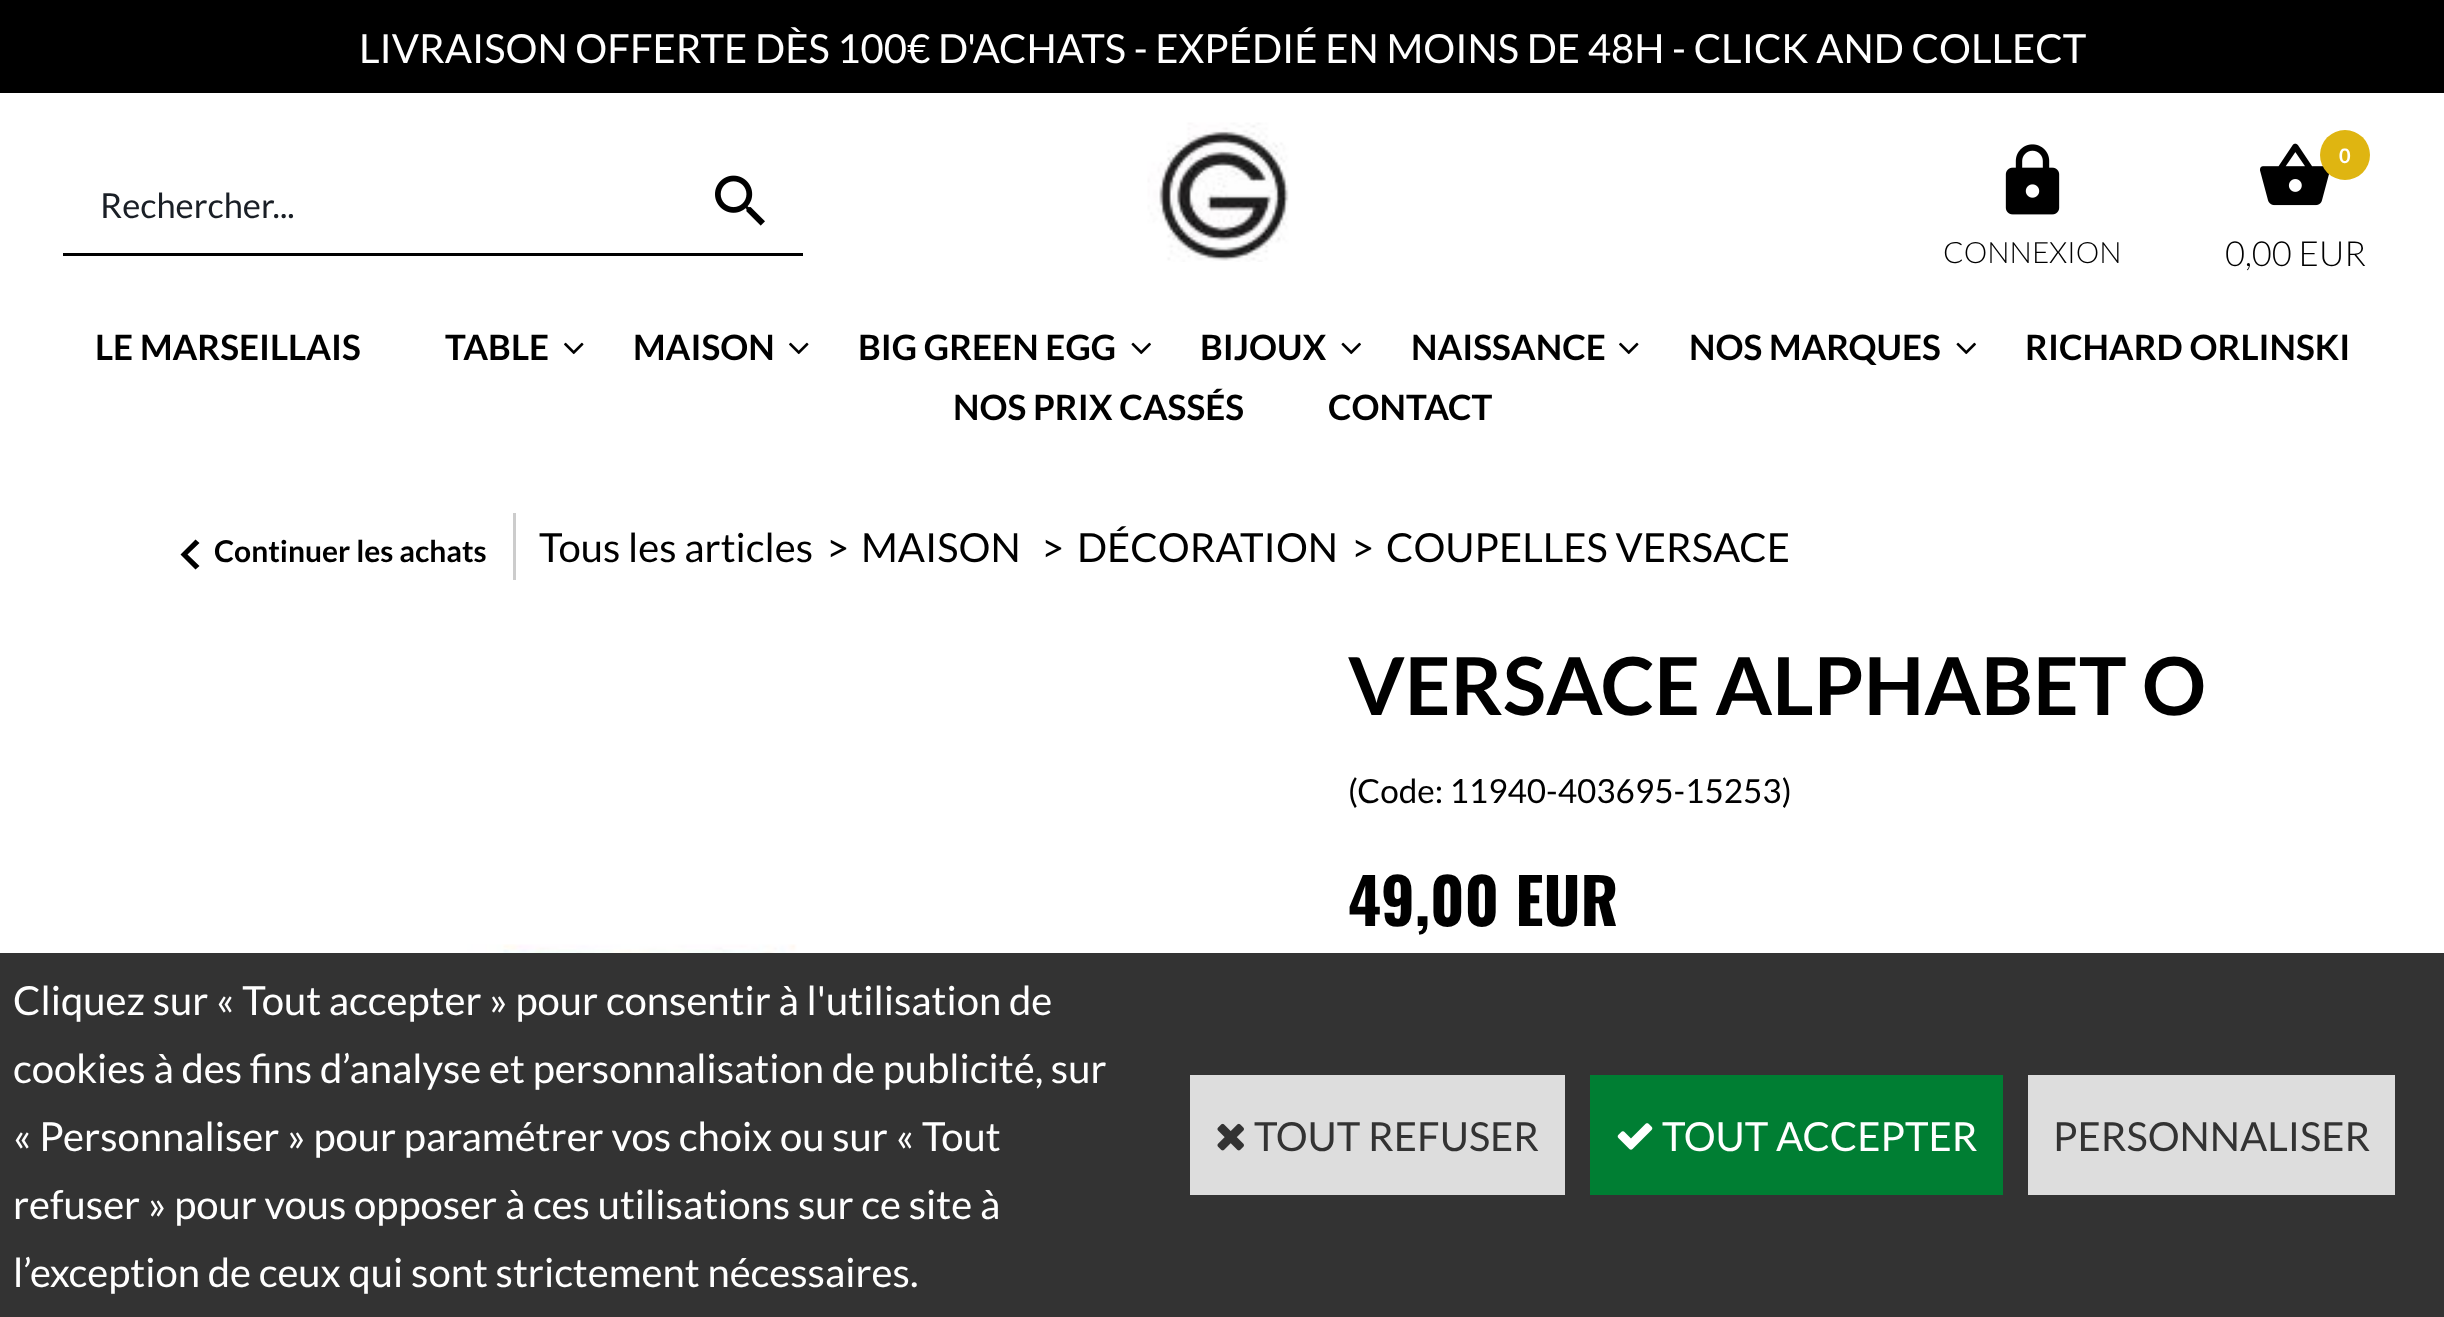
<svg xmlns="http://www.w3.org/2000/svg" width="2444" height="1317">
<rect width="100%" height="100%" fill="#fff"/>
<rect width="2444" height="93" fill="#000"/>
<text x="359" y="63" style="font-family:Lato;font-size:40px;fill:#fff">LIVRAISON OFFERTE DÈS 100€ D'ACHATS - EXPÉDIÉ EN MOINS DE 48H - CLICK AND COLLECT</text>
<rect x="63" y="253" width="740" height="3" fill="#000"/>
<text x="100" y="218" style="font-family:Lato;font-size:34.5px;fill:#1a1f26">Rechercher...</text>
<image x="715" y="175" width="50" height="51" href="media/1.png"/>
<image x="1147" y="122" width="142" height="140" href="media/2.png"/>
<image x="2005" y="144" width="55" height="71" href="media/3.png"/>
<text x="1943" y="263" style="font-family:Lato;font-size:29.5px;font-weight:300;fill:#000">CONNEXION</text>
<image x="2260" y="143" width="69" height="63" href="media/4.png"/>
<circle cx="2345" cy="155" r="25" fill="#dfb511"/>
<text x="2339" y="163" style="font-family:Lato;font-size:20px;font-weight:bold;fill:#fff">0</text>
<text x="2225" y="266" style="font-family:Lato;font-size:34.5px;font-weight:300;fill:#000">0,00 EUR</text>
<text x="95" y="360" style="font-family:Lato;font-size:35px;font-weight:bold;fill:#000">LE MARSEILLAIS</text>
<text x="445" y="360" style="font-family:Lato;font-size:35px;font-weight:bold;fill:#000">TABLE</text>
<image x="564" y="342" width="20" height="13" href="media/5.png"/>
<text x="633" y="360" style="font-family:Lato;font-size:35px;font-weight:bold;fill:#000">MAISON</text>
<image x="789" y="342" width="20" height="13" href="media/5.png"/>
<text x="858" y="360" style="font-family:Lato;font-size:35px;font-weight:bold;fill:#000">BIG GREEN EGG</text>
<image x="1131" y="342" width="20" height="13" href="media/6.png"/>
<text x="1200" y="360" style="font-family:Lato;font-size:35px;font-weight:bold;fill:#000">BIJOUX</text>
<image x="1341" y="342" width="20" height="13" href="media/6.png"/>
<text x="1411" y="360" style="font-family:Lato;font-size:35px;font-weight:bold;fill:#000">NAISSANCE</text>
<image x="1619" y="342" width="20" height="13" href="media/5.png"/>
<text x="1689" y="360" style="font-family:Lato;font-size:35px;font-weight:bold;fill:#000">NOS MARQUES</text>
<image x="1956" y="342" width="20" height="13" href="media/6.png"/>
<text x="2025" y="360" style="font-family:Lato;font-size:35px;font-weight:bold;fill:#000">RICHARD ORLINSKI</text>
<text x="953" y="420" style="font-family:Lato;font-size:35px;font-weight:bold;fill:#000">NOS PRIX CASSÉS</text>
<text x="1328" y="420" style="font-family:Lato;font-size:35px;font-weight:bold;fill:#000">CONTACT</text>
<path d="M199.5 566l-12-11.5l12-11.5l-4-3.5l-15 15l15 15z" fill="#000"/>
<text x="214" y="562" style="font-family:Lato;font-size:30px;font-weight:bold;fill:#000">Continuer les achats</text>
<rect x="513" y="513" width="3" height="67" fill="#ccc"/>
<text x="539" y="562" style="font-family:Lato;font-size:40px;fill:#000">Tous les articles</text>
<text x="826" y="562" style="font-family:Lato;font-size:40px;fill:#000">&gt;</text>
<text x="861" y="562" style="font-family:Lato;font-size:40px;fill:#000">MAISON</text>
<text x="1041" y="562" style="font-family:Lato;font-size:40px;fill:#000">&gt;</text>
<text x="1077" y="562" style="font-family:Lato;font-size:40px;fill:#000">DÉCORATION</text>
<text x="1351" y="562" style="font-family:Lato;font-size:40px;fill:#000">&gt;</text>
<text x="1386" y="562" style="font-family:Lato;font-size:40px;fill:#000">COUPELLES VERSACE</text>
<text x="1348" y="715" style="font-family:Lato;font-size:80px;font-weight:bold;fill:#000">VERSACE ALPHABET O</text>
<text x="1348" y="803" style="font-family:Lato;font-size:33.3px;fill:#000">(Code: 11940-403695-15253)</text>
<text x="1348" y="926" style="font-family:Oswald;font-size:63px;font-weight:bold;fill:#000">49,00 EUR</text>
<image x="467" y="944" width="330" height="9" href="media/7.png"/>
<rect y="953" width="2444" height="364" fill="#333"/>
<text x="13" y="1015" style="font-family:Lato;font-size:40px;fill:#fff">Cliquez sur « Tout accepter » pour consentir à l'utilisation de</text>
<text x="13" y="1083" style="font-family:Lato;font-size:40px;fill:#fff">cookies à des fins d’analyse et personnalisation de publicité, sur</text>
<text x="13" y="1151" style="font-family:Lato;font-size:40px;fill:#fff">« Personnaliser » pour paramétrer vos choix ou sur « Tout</text>
<text x="13" y="1219" style="font-family:Lato;font-size:40px;fill:#fff">refuser » pour vous opposer à ces utilisations sur ce site à</text>
<text x="13" y="1287" style="font-family:Lato;font-size:40px;fill:#fff">l’exception de ceux qui sont strictement nécessaires.</text>
<rect x="1190" y="1075" width="375" height="120" fill="#ddd"/>
<image x="1217" y="1123" width="27" height="28" href="media/8.png"/>
<text x="1254" y="1151" style="font-family:Lato;font-size:40px;fill:#333">TOUT REFUSER</text>
<rect x="1590" y="1075" width="413" height="120" fill="#007e33"/>
<image x="1617" y="1123" width="36" height="27" href="media/9.png"/>
<text x="1662" y="1151" style="font-family:Lato;font-size:40px;fill:#fff">TOUT ACCEPTER</text>
<rect x="2028" y="1075" width="367" height="120" fill="#ddd"/>
<text x="2053" y="1151" style="font-family:Lato;font-size:40px;fill:#333">PERSONNALISER</text>
</svg>
